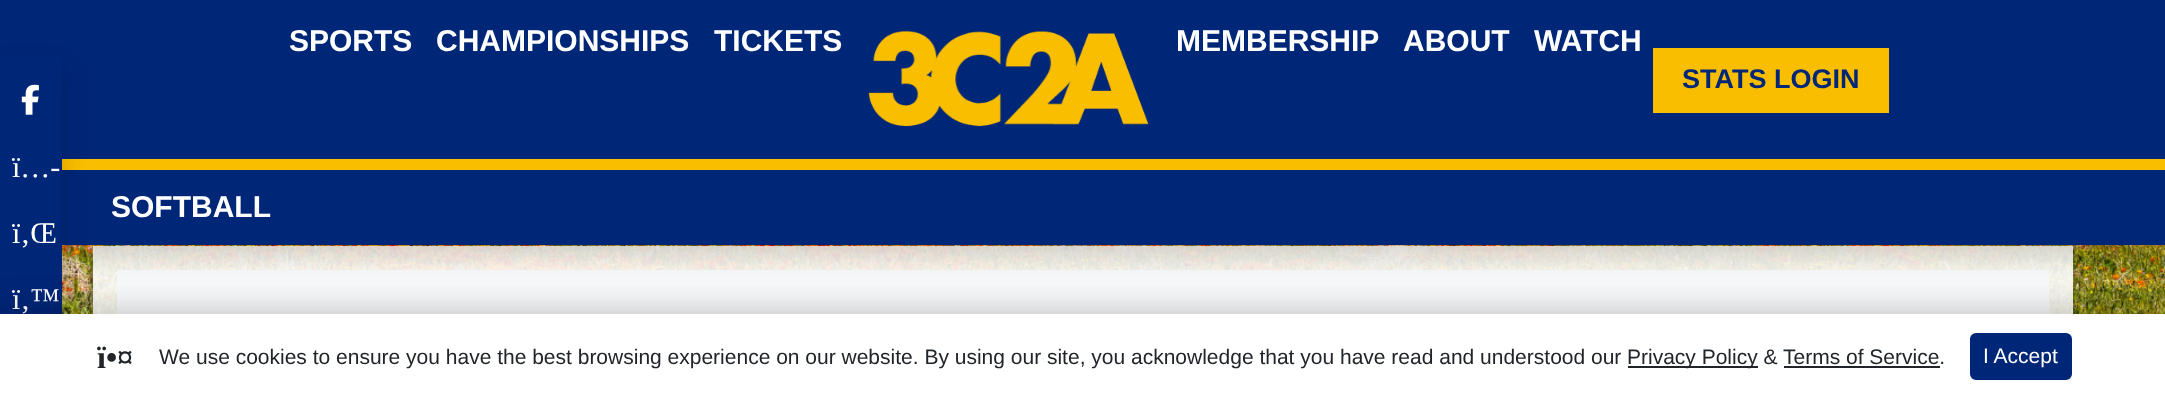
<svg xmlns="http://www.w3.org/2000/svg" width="2165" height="398">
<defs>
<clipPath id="clip1"><path d="M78 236h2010v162h-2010zm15 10h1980v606h-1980z" clip-rule="evenodd"/></clipPath>
</defs>
<rect width="100%" height="100%" fill="#fff"/>
<image x="62" y="245" width="2103" height="69" href="media/1.png"/>
<g clip-path="url(#clip1)">
<rect x="93" y="251" width="1980" height="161" fill="#0000003b" filter="blur(4.5px)"/>
<rect x="93" y="251" width="1980" height="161" fill="#00000029" filter="blur(4.5px)"/>
</g>
<rect x="93" y="246" width="1980" height="68" fill="#ffffffe6"/>
<rect x="117" y="270" width="1932" height="44" fill="#f8f9fa"/>
<rect y="12" width="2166" height="245" fill="#00000026" filter="blur(12px)"/>
<rect width="2165" height="159" fill="#002677"/>
<rect x="62" y="159" width="2103" height="11" fill="#f9be00"/>
<text x="289" y="51" style="font-family:Liberation Sans;font-size:30px;font-weight:bold;fill:#fff">SPORTS</text>
<text x="436" y="51" style="font-family:Liberation Sans;font-size:30px;font-weight:bold;fill:#fff">CHAMPIONSHIPS</text>
<text x="714" y="51" style="font-family:Liberation Sans;font-size:30px;font-weight:bold;fill:#fff">TICKETS</text>
<image x="868" y="30" width="281" height="96" href="media/2.png"/>
<text x="1176" y="51" style="font-family:Liberation Sans;font-size:30px;font-weight:bold;fill:#fff">MEMBERSHIP</text>
<text x="1403" y="51" style="font-family:Liberation Sans;font-size:30px;font-weight:bold;fill:#fff">ABOUT</text>
<text x="1534" y="51" style="font-family:Liberation Sans;font-size:30px;font-weight:bold;fill:#fff">WATCH</text>
<rect x="1653" y="48" width="236" height="65" fill="#f9be00"/>
<text x="1682" y="88" style="font-family:Liberation Sans;font-size:27px;font-weight:bold;fill:#002677">STATS LOGIN</text>
<rect x="62" y="170" width="2103" height="75" fill="#002677"/>
<text x="111" y="217" style="font-family:Liberation Sans;font-size:30px;font-weight:bold;fill:#fff">SOFTBALL</text>
<rect y="68" width="62" height="288" fill="#00000026" filter="blur(12px)"/>
<rect y="56" width="62" height="258" fill="#002677"/>
<image x="21" y="84" width="18" height="31" href="media/3.png"/>
<text x="12" y="177" style="font-family:Liberation Serif;font-size:30px;fill:#fff">ï…-</text>
<text x="12" y="243" style="font-family:Liberation Serif;font-size:30px;fill:#fff">ï‚Œ</text>
<text x="12" y="309" style="font-family:Liberation Serif;font-size:30px;fill:#fff">ï‚™</text>
<rect y="314" width="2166" height="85" fill="#00000040" filter="blur(18px)"/>
<rect y="314" width="2165" height="84" fill="#fff"/>
<text x="97" y="368" style="font-family:Liberation Serif;font-size:32px;font-weight:bold;fill:#212529">ï•¤</text>
<text x="159" y="364" style="font-family:Liberation Sans;font-size:21px;fill:#212529">We use cookies to ensure you have the best browsing experience on our website. By using our site, you acknowledge that you have read and understood our</text>
<rect x="1628" y="366" width="130" height="2" fill="#212529"/>
<text x="1627" y="364" style="font-family:Liberation Sans;font-size:21px;fill:#212529">Privacy Policy &amp;</text>
<text x="1783" y="364" style="font-family:Liberation Sans;font-size:21px;fill:#212529">Terms of Service.</text>
<rect x="1784" y="366" width="156" height="2" fill="#212529"/>
<rect x="1971" y="334" width="100" height="45" rx="5" fill="#002677" stroke="#002677" stroke-width="2"/>
<text x="1983" y="363" style="font-family:Liberation Sans;font-size:21px;fill:#fff">I Accept</text>
</svg>
